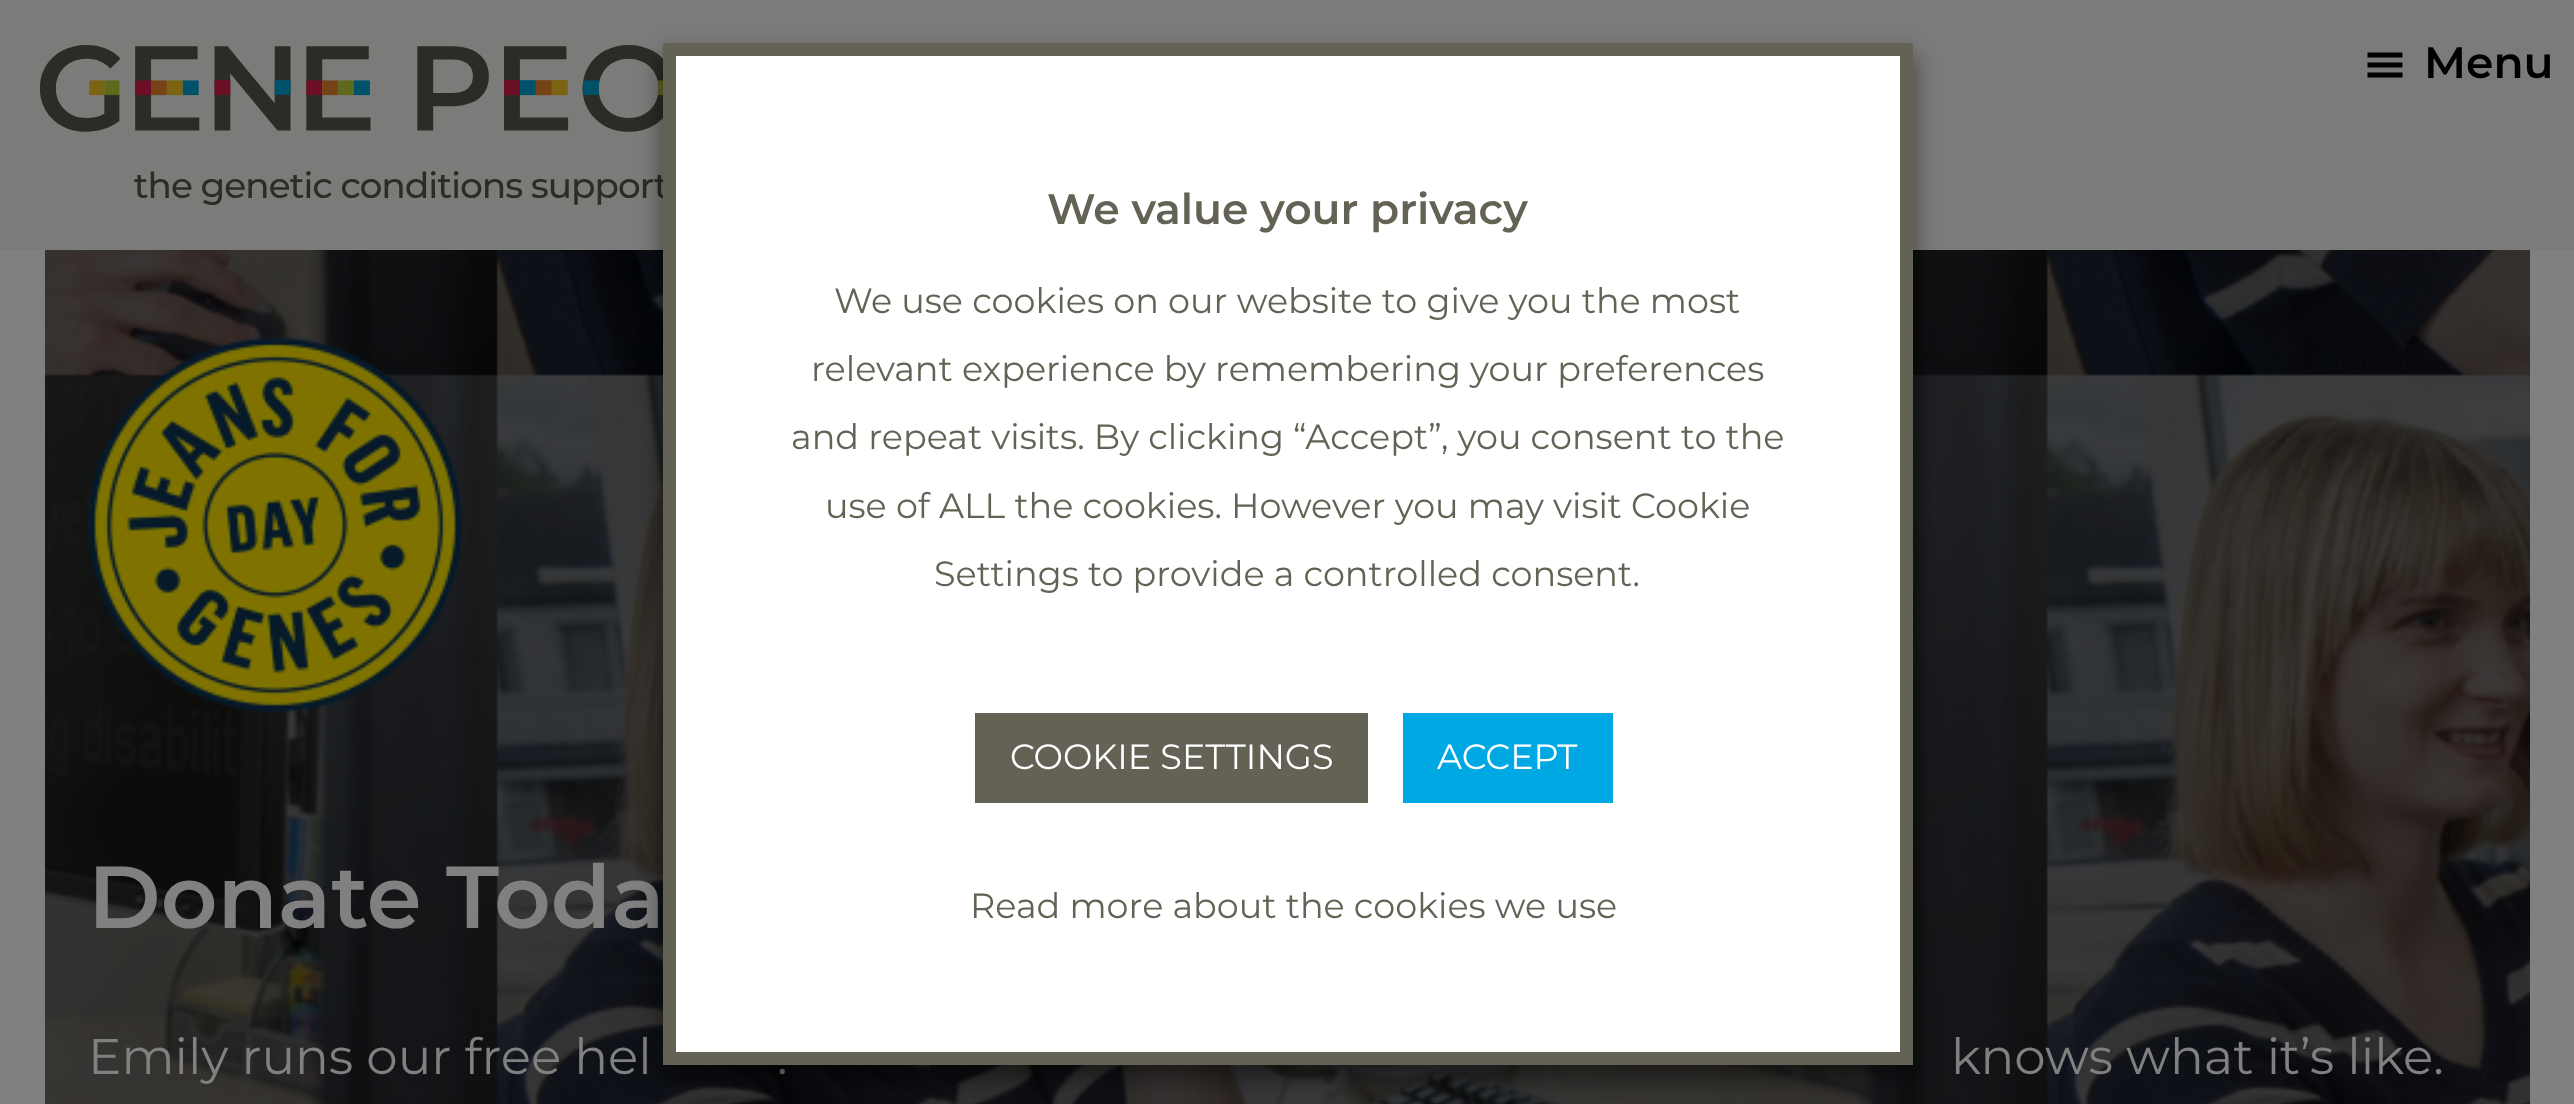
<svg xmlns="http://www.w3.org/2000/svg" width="2574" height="1104">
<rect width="100%" height="100%" fill="#808080"/>
<rect width="2574" height="250" fill="#7b7b7a"/>
<image x="40" y="45" width="623" height="160" href="media/1.png"/>
<path d="M2367.5 77.5h35v-5h-35zm0-25v5h35v-5zm0 15h35v-5h-35z" fill="#000"/>
<text x="2424" y="78" style="font-family:Montserrat;font-size:44px;font-weight:600;fill:#000">Menu</text>
<image x="45" y="250" width="2485" height="854" href="media/2.png"/>
<image x="87" y="337" width="376" height="376" href="media/3.png"/>
<text x="88" y="928" style="font-family:Montserrat;font-size:88px;font-weight:600;fill:#808080">Donate Toda</text>
<text x="88" y="1074" style="font-family:Montserrat;font-size:50px;fill:#808080">Emily runs our free hel</text>
<text x="777" y="1074" style="font-family:Montserrat;font-size:50px;fill:#808080">.</text>
<text x="1951" y="1074" style="font-family:Montserrat;font-size:50px;fill:#808080">knows what it’s like.</text>
<rect x="663" y="55" width="1250" height="1023" fill="#00000080" filter="blur(12.5px)"/>
<rect x="669.5" y="49.5" width="1237" height="1009" fill="#fff" stroke="#636255" stroke-width="13"/>
<text x="1047" y="224" style="font-family:Montserrat;font-size:42.5px;font-weight:600;fill:#636255">We value your privacy</text>
<text x="834" y="313" style="font-family:Montserrat;font-size:35px;fill:#636255">We use cookies on our website to give you the most</text>
<text x="811" y="381" style="font-family:Montserrat;font-size:35px;fill:#636255">relevant experience by remembering your preferences</text>
<text x="791" y="449" style="font-family:Montserrat;font-size:35px;fill:#636255">and repeat visits. By clicking “Accept”, you consent to the</text>
<text x="825" y="518" style="font-family:Montserrat;font-size:35px;fill:#636255">use of ALL the cookies. However you may visit Cookie</text>
<text x="934" y="586" style="font-family:Montserrat;font-size:35px;fill:#636255">Settings to provide a controlled consent.</text>
<rect x="975" y="713" width="393" height="90" fill="#636255"/>
<text x="1010" y="769" style="font-family:Montserrat;font-size:35px;fill:#fff">COOKIE SETTINGS</text>
<rect x="1403" y="713" width="210" height="90" fill="#00a8e3"/>
<text x="1437" y="769" style="font-family:Montserrat;font-size:35px;fill:#fff">ACCEPT</text>
<text x="970" y="918" style="font-family:Montserrat;font-size:35px;fill:#636255">Read more about the cookies we use</text>
</svg>
